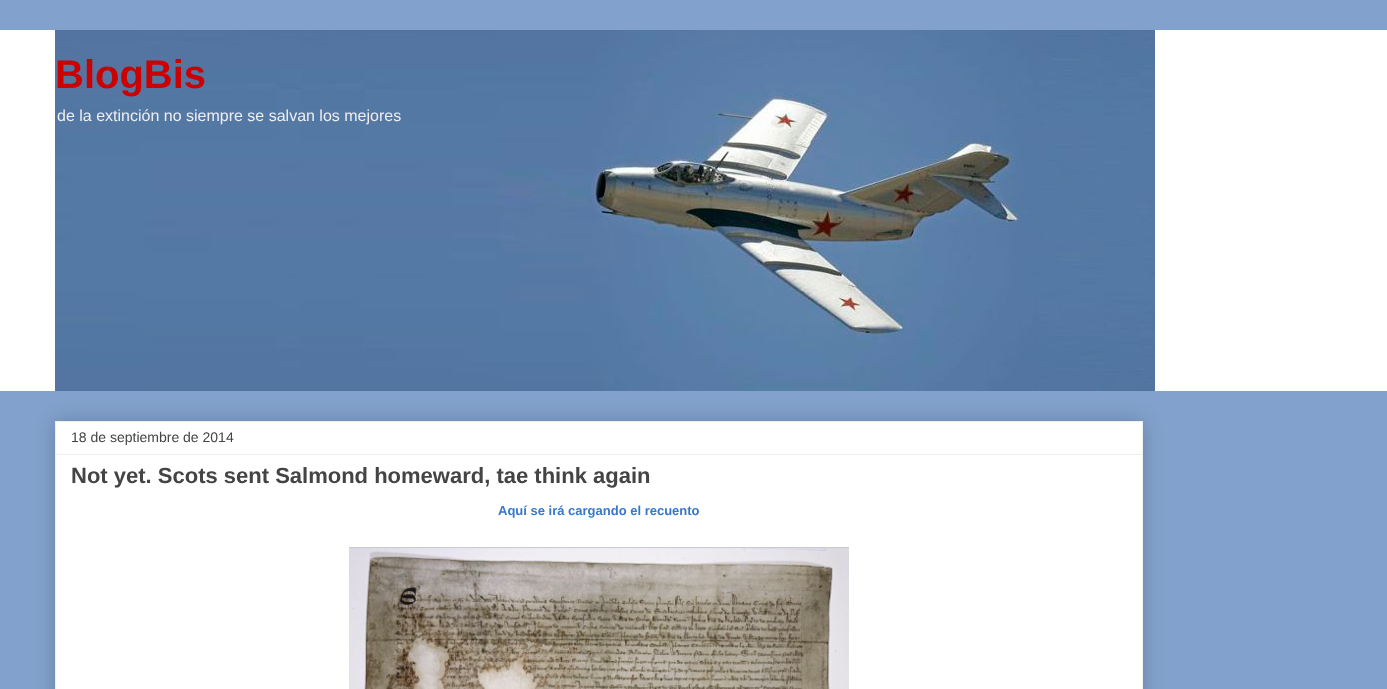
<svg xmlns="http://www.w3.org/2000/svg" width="1387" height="689">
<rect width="100%" height="100%" fill="#82a2cd"/>
<rect y="30" width="1387" height="361" fill="#fff"/>
<image x="55" y="30" width="1100" height="361" href="media/1.png"/>
<text x="55" y="88" style="font-family:Liberation Sans;font-size:40px;font-weight:bold;fill:#c00">BlogBis</text>
<text x="57" y="121" style="font-family:Liberation Sans;font-size:16px;fill:#eee">de la extinción no siempre se salvan los mejores</text>
<rect x="55" y="421" width="1088" height="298" fill="#00000033" filter="blur(10px)"/>
<rect x="55.5" y="421.5" width="1087" height="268" fill="#fff" stroke="#eee"/>
<text x="71" y="442" style="font-family:Liberation Sans;font-size:14px;fill:#444">18 de septiembre de 2014</text>
<rect x="56" y="454" width="1086" height="1" fill="#eee"/>
<text x="71" y="483" style="font-family:Liberation Sans;font-size:22px;font-weight:bold;fill:#444">Not yet. Scots sent Salmond homeward, tae think again</text>
<text x="498" y="515" style="font-family:Liberation Sans;font-size:13px;font-weight:bold;fill:#3778cd">Aquí se irá cargando el recuento</text>
<image x="349" y="547" width="500" height="142" href="media/2.png"/>
</svg>
